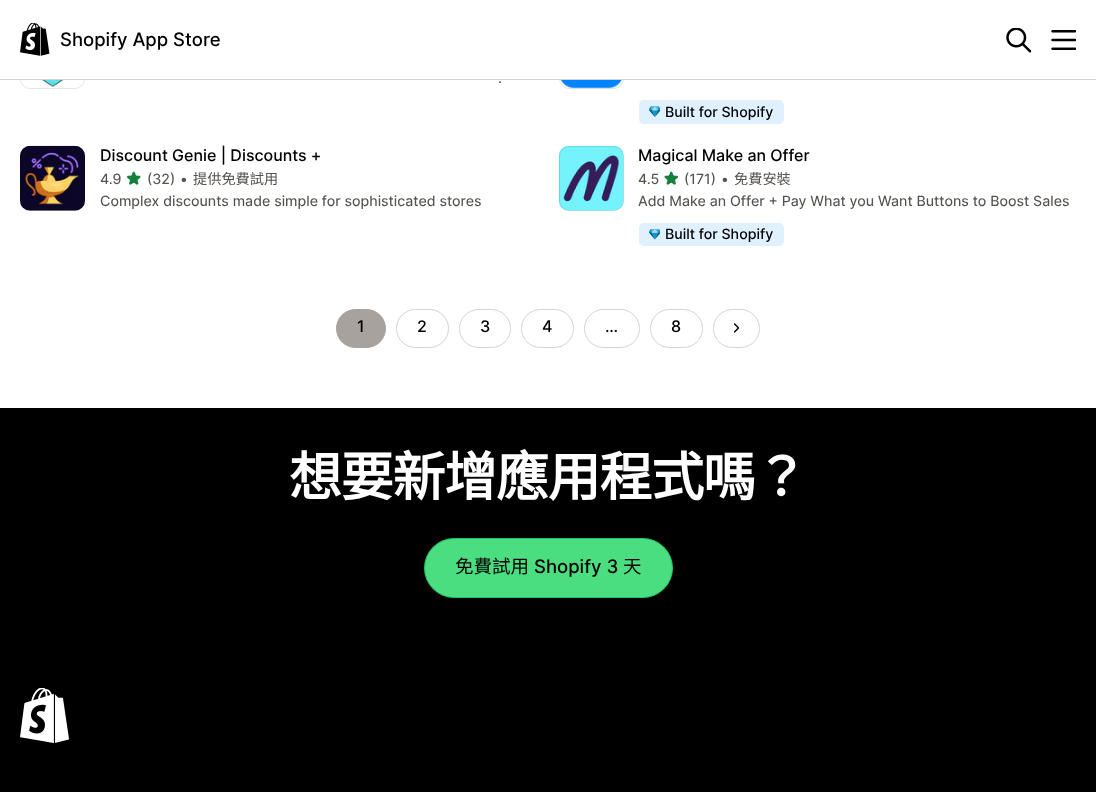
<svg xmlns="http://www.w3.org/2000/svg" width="1096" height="792">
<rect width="100%" height="100%" fill="#fff"/>
<image x="31" y="80" width="43" height="8" href="media/4.png"/>
<rect x="20.5" y="24.5" width="64" height="64" rx="9.5" fill="none" stroke="#0000001a"/>
<image x="560" y="80" width="62" height="9" href="media/5.png"/>
<rect x="559.5" y="24.5" width="64" height="64" rx="9.5" fill="none" stroke="#0000001a"/>
<rect x="20" y="24" width="604" height="55" fill="#fff"/>
<rect y="79" width="1096" height="1" fill="#d6d3d1"/>
<image x="20" y="23" width="30" height="33" href="media/1.png"/>
<text x="60" y="46" style="font-family:Inter;font-size:18.5px;font-weight:500;fill:#000">Shopify App Store</text>
<image x="1006" y="28" width="25" height="25" href="media/2.png"/>
<image x="1051" y="30" width="25" height="20" href="media/3.png"/>
<text x="498" y="83" style="font-family:Inter;font-size:14.2px;fill:#56524e">.</text>
<rect x="639" y="100" width="145" height="24" rx="5" fill="#e0f0ff"/>
<image x="649" y="106" width="11" height="11" href="media/6.png"/>
<text x="665" y="117" style="font-family:Inter;font-size:14.2px;font-weight:500;fill:#000">Built for Shopify</text>
<image x="20" y="145" width="65" height="66" href="media/7.png"/>
<rect x="20.5" y="146.5" width="64" height="64" rx="9.5" fill="none" stroke="#0000001a"/>
<text x="100" y="161" style="font-family:Inter;font-size:16px;font-weight:500;fill:#000">Discount Genie | Discounts +</text>
<text x="100" y="184" style="font-family:Inter;font-size:14.2px;fill:#56524e">4.9</text>
<image x="127" y="171" width="14" height="14" href="media/8.png"/>
<text x="147" y="184" style="font-family:Inter;font-size:14.2px;fill:#56524e">(32)</text>
<text x="180" y="184" style="font-family:Inter;font-size:14.2px;fill:#56524e">•</text>
<text x="193" y="184" style="font-family:Noto Sans CJK TC;font-size:14.2px;fill:#56524e">提供免費試用</text>
<text x="100" y="206" style="font-family:Inter;font-size:14.2px;fill:#56524e">Complex discounts made simple for sophisticated stores</text>
<image x="558" y="145" width="66" height="66" href="media/9.png"/>
<rect x="559.5" y="146.5" width="64" height="64" rx="9.5" fill="none" stroke="#0000001a"/>
<text x="638" y="161" style="font-family:Inter;font-size:16px;font-weight:500;fill:#000">Magical Make an Offer</text>
<text x="638" y="184" style="font-family:Inter;font-size:14.2px;fill:#56524e">4.5</text>
<image x="664" y="171" width="14" height="14" href="media/10.png"/>
<text x="684" y="184" style="font-family:Inter;font-size:14.2px;fill:#56524e">(171)</text>
<text x="721" y="184" style="font-family:Inter;font-size:14.2px;fill:#56524e">•</text>
<text x="734" y="184" style="font-family:Noto Sans CJK TC;font-size:14.2px;fill:#56524e">免費安裝</text>
<text x="638" y="206" style="font-family:Inter;font-size:14.2px;fill:#56524e">Add Make an Offer + Pay What you Want Buttons to Boost Sales</text>
<rect x="639" y="223" width="145" height="23" rx="5" fill="#e0f0ff"/>
<image x="649" y="229" width="11" height="11" href="media/11.png"/>
<text x="665" y="239" style="font-family:Inter;font-size:14.2px;font-weight:500;fill:#000">Built for Shopify</text>
<rect x="336.5" y="309.5" width="49" height="38" rx="19" fill="#a8a29f" stroke="#a8a29f"/>
<text x="357" y="332" style="font-family:Inter;font-size:16px;font-weight:500;fill:#000">1</text>
<rect x="396.5" y="309.5" width="52" height="38" rx="19" fill="none" stroke="#d6d3d1"/>
<text x="417" y="332" style="font-family:Inter;font-size:16px;font-weight:500;fill:#000">2</text>
<rect x="459.5" y="309.5" width="51" height="38" rx="19" fill="none" stroke="#d6d3d1"/>
<text x="480" y="332" style="font-family:Inter;font-size:16px;font-weight:500;fill:#000">3</text>
<rect x="521.5" y="309.5" width="52" height="38" rx="19" fill="none" stroke="#d6d3d1"/>
<text x="542" y="332" style="font-family:Inter;font-size:16px;font-weight:500;fill:#000">4</text>
<rect x="584.5" y="309.5" width="55" height="38" rx="19" fill="none" stroke="#d6d3d1"/>
<text x="605" y="332" style="font-family:Inter;font-size:16px;font-weight:500;fill:#000">…</text>
<rect x="650.5" y="309.5" width="52" height="38" rx="19" fill="none" stroke="#d6d3d1"/>
<text x="671" y="332" style="font-family:Inter;font-size:16px;font-weight:500;fill:#000">8</text>
<rect x="713.5" y="309.5" width="46" height="38" rx="19" fill="none" stroke="#d6d3d1"/>
<image x="734" y="323" width="5" height="10" href="media/12.png"/>
<rect y="408" width="1096" height="384" fill="#000"/>
<text x="289" y="496" style="font-family:Noto Sans CJK TC;font-size:52.75px;font-weight:bold;letter-spacing:-1px;fill:#fff">想要新增應用程式嗎？</text>
<rect x="424.5" y="538.5" width="248" height="59" rx="29.5" fill="#4ade80" stroke="#21c45d"/>
<text x="455" y="573" style="font-family:Noto Sans CJK TC;font-size:18.5px;fill:#000">免費試用</text>
<text x="534" y="573" style="font-family:Inter;font-size:18.5px;font-weight:500;fill:#000">Shopify 3</text>
<text x="623" y="573" style="font-family:Noto Sans CJK TC;font-size:18.5px;fill:#000">天</text>
<image x="20" y="688" width="49" height="55" href="media/13.png"/>
</svg>
